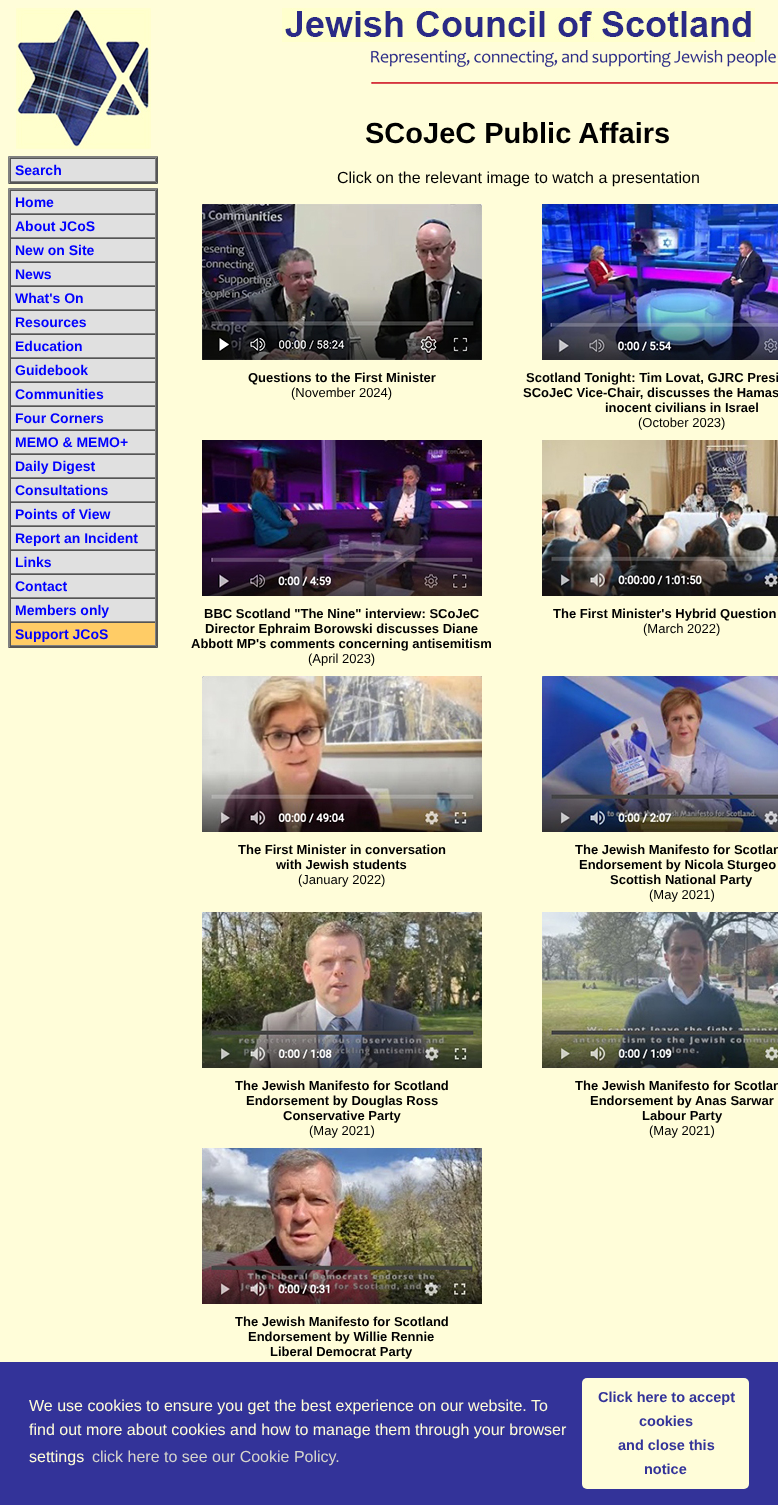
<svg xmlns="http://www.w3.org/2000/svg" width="778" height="1505">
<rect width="100%" height="100%" fill="#fffdd9"/>
<image x="16" y="8" width="135" height="141" href="media/1.png"/>
<path d="M8 156h150l-2 2h-146z" fill="#808080"/>
<path d="M158 156v28l-2-2v-24z" fill="#555"/>
<path d="M158 184h-150l2-2h146z" fill="#555"/>
<path d="M8 184v-28l2 2v24z" fill="#808080"/>
<rect x="11" y="159" width="144" height="22" fill="#e0e0e0"/>
<rect x="10" y="158" width="146" height="1" fill="#555"/>
<rect x="155" y="158" width="1" height="24" fill="#808080"/>
<rect x="10" y="181" width="146" height="1" fill="#808080"/>
<rect x="10" y="158" width="1" height="24" fill="#555"/>
<text x="15" y="175" style="font-family:Liberation Sans;font-size:14px;font-weight:bold;fill:#00f">Search</text>
<rect x="8" y="188" width="150" height="460" fill="#e0e0e0"/>
<path d="M8 188h150l-2 2h-146z" fill="#808080"/>
<path d="M158 188v460l-2-2v-456z" fill="#555"/>
<path d="M158 648h-150l2-2h146z" fill="#555"/>
<path d="M8 648v-460l2 2v456z" fill="#808080"/>
<rect x="10" y="190" width="146" height="1" fill="#555"/>
<rect x="155" y="190" width="1" height="24" fill="#808080"/>
<rect x="10" y="213" width="146" height="1" fill="#808080"/>
<rect x="10" y="190" width="1" height="24" fill="#555"/>
<text x="15" y="207" style="font-family:Liberation Sans;font-size:14px;font-weight:bold;fill:#00f">Home</text>
<rect x="10" y="214" width="146" height="1" fill="#555"/>
<rect x="155" y="214" width="1" height="24" fill="#808080"/>
<rect x="10" y="237" width="146" height="1" fill="#808080"/>
<rect x="10" y="214" width="1" height="24" fill="#555"/>
<text x="15" y="231" style="font-family:Liberation Sans;font-size:14px;font-weight:bold;fill:#00f">About JCoS</text>
<rect x="10" y="238" width="146" height="1" fill="#555"/>
<rect x="155" y="238" width="1" height="24" fill="#808080"/>
<rect x="10" y="261" width="146" height="1" fill="#808080"/>
<rect x="10" y="238" width="1" height="24" fill="#555"/>
<text x="15" y="255" style="font-family:Liberation Sans;font-size:14px;font-weight:bold;fill:#00f">New on Site</text>
<rect x="10" y="262" width="146" height="1" fill="#555"/>
<rect x="155" y="262" width="1" height="24" fill="#808080"/>
<rect x="10" y="285" width="146" height="1" fill="#808080"/>
<rect x="10" y="262" width="1" height="24" fill="#555"/>
<text x="15" y="279" style="font-family:Liberation Sans;font-size:14px;font-weight:bold;fill:#00f">News</text>
<rect x="10" y="286" width="146" height="1" fill="#555"/>
<rect x="155" y="286" width="1" height="24" fill="#808080"/>
<rect x="10" y="309" width="146" height="1" fill="#808080"/>
<rect x="10" y="286" width="1" height="24" fill="#555"/>
<text x="15" y="303" style="font-family:Liberation Sans;font-size:14px;font-weight:bold;fill:#00f">What's On</text>
<rect x="10" y="310" width="146" height="1" fill="#555"/>
<rect x="155" y="310" width="1" height="24" fill="#808080"/>
<rect x="10" y="333" width="146" height="1" fill="#808080"/>
<rect x="10" y="310" width="1" height="24" fill="#555"/>
<text x="15" y="327" style="font-family:Liberation Sans;font-size:14px;font-weight:bold;fill:#00f">Resources</text>
<rect x="10" y="334" width="146" height="1" fill="#555"/>
<rect x="155" y="334" width="1" height="24" fill="#808080"/>
<rect x="10" y="357" width="146" height="1" fill="#808080"/>
<rect x="10" y="334" width="1" height="24" fill="#555"/>
<text x="15" y="351" style="font-family:Liberation Sans;font-size:14px;font-weight:bold;fill:#00f">Education</text>
<rect x="10" y="358" width="146" height="1" fill="#555"/>
<rect x="155" y="358" width="1" height="24" fill="#808080"/>
<rect x="10" y="381" width="146" height="1" fill="#808080"/>
<rect x="10" y="358" width="1" height="24" fill="#555"/>
<text x="15" y="375" style="font-family:Liberation Sans;font-size:14px;font-weight:bold;fill:#00f">Guidebook</text>
<rect x="10" y="382" width="146" height="1" fill="#555"/>
<rect x="155" y="382" width="1" height="24" fill="#808080"/>
<rect x="10" y="405" width="146" height="1" fill="#808080"/>
<rect x="10" y="382" width="1" height="24" fill="#555"/>
<text x="15" y="399" style="font-family:Liberation Sans;font-size:14px;font-weight:bold;fill:#00f">Communities</text>
<rect x="10" y="406" width="146" height="1" fill="#555"/>
<rect x="155" y="406" width="1" height="24" fill="#808080"/>
<rect x="10" y="429" width="146" height="1" fill="#808080"/>
<rect x="10" y="406" width="1" height="24" fill="#555"/>
<text x="15" y="423" style="font-family:Liberation Sans;font-size:14px;font-weight:bold;fill:#00f">Four Corners</text>
<rect x="10" y="430" width="146" height="1" fill="#555"/>
<rect x="155" y="430" width="1" height="24" fill="#808080"/>
<rect x="10" y="453" width="146" height="1" fill="#808080"/>
<rect x="10" y="430" width="1" height="24" fill="#555"/>
<text x="15" y="447" style="font-family:Liberation Sans;font-size:14px;font-weight:bold;fill:#00f">MEMO &amp; MEMO+</text>
<rect x="10" y="454" width="146" height="1" fill="#555"/>
<rect x="155" y="454" width="1" height="24" fill="#808080"/>
<rect x="10" y="477" width="146" height="1" fill="#808080"/>
<rect x="10" y="454" width="1" height="24" fill="#555"/>
<text x="15" y="471" style="font-family:Liberation Sans;font-size:14px;font-weight:bold;fill:#00f">Daily Digest</text>
<rect x="10" y="478" width="146" height="1" fill="#555"/>
<rect x="155" y="478" width="1" height="24" fill="#808080"/>
<rect x="10" y="501" width="146" height="1" fill="#808080"/>
<rect x="10" y="478" width="1" height="24" fill="#555"/>
<text x="15" y="495" style="font-family:Liberation Sans;font-size:14px;font-weight:bold;fill:#00f">Consultations</text>
<rect x="10" y="502" width="146" height="1" fill="#555"/>
<rect x="155" y="502" width="1" height="24" fill="#808080"/>
<rect x="10" y="525" width="146" height="1" fill="#808080"/>
<rect x="10" y="502" width="1" height="24" fill="#555"/>
<text x="15" y="519" style="font-family:Liberation Sans;font-size:14px;font-weight:bold;fill:#00f">Points of View</text>
<rect x="10" y="526" width="146" height="1" fill="#555"/>
<rect x="155" y="526" width="1" height="24" fill="#808080"/>
<rect x="10" y="549" width="146" height="1" fill="#808080"/>
<rect x="10" y="526" width="1" height="24" fill="#555"/>
<text x="15" y="543" style="font-family:Liberation Sans;font-size:14px;font-weight:bold;fill:#00f">Report an Incident</text>
<rect x="10" y="550" width="146" height="1" fill="#555"/>
<rect x="155" y="550" width="1" height="24" fill="#808080"/>
<rect x="10" y="573" width="146" height="1" fill="#808080"/>
<rect x="10" y="550" width="1" height="24" fill="#555"/>
<text x="15" y="567" style="font-family:Liberation Sans;font-size:14px;font-weight:bold;fill:#00f">Links</text>
<rect x="10" y="574" width="146" height="1" fill="#555"/>
<rect x="155" y="574" width="1" height="24" fill="#808080"/>
<rect x="10" y="597" width="146" height="1" fill="#808080"/>
<rect x="10" y="574" width="1" height="24" fill="#555"/>
<text x="15" y="591" style="font-family:Liberation Sans;font-size:14px;font-weight:bold;fill:#00f">Contact</text>
<rect x="10" y="598" width="146" height="1" fill="#555"/>
<rect x="155" y="598" width="1" height="24" fill="#808080"/>
<rect x="10" y="621" width="146" height="1" fill="#808080"/>
<rect x="10" y="598" width="1" height="24" fill="#555"/>
<text x="15" y="615" style="font-family:Liberation Sans;font-size:14px;font-weight:bold;fill:#00f">Members only</text>
<rect x="11" y="623" width="144" height="22" fill="#fc6"/>
<rect x="10" y="622" width="146" height="1" fill="#555"/>
<rect x="155" y="622" width="1" height="24" fill="#808080"/>
<rect x="10" y="645" width="146" height="1" fill="#808080"/>
<rect x="10" y="622" width="1" height="24" fill="#555"/>
<text x="15" y="639" style="font-family:Liberation Sans;font-size:14px;font-weight:bold;fill:#00f">Support JCoS</text>
<image x="282" y="8" width="473" height="34" href="media/2.png"/>
<image x="371" y="50" width="405" height="17" href="media/3.png"/>
<image x="371" y="82" width="407" height="2" href="media/4.png"/>
<text x="365" y="143" style="font-family:Liberation Sans;font-size:29px;font-weight:bold;fill:#000">SCoJeC Public Affairs</text>
<text x="337" y="183" style="font-family:Liberation Sans;font-size:16px;fill:#000">Click on the relevant image to watch a presentation</text>
<image x="202" y="204" width="280" height="156" href="media/5.png"/>
<image x="542" y="204" width="236" height="156" href="media/6.png"/>
<text x="248" y="382" style="font-family:Liberation Sans;font-size:13px;font-weight:bold;fill:#000">Questions to the First Minister</text>
<text x="291" y="397" style="font-family:Liberation Sans;font-size:13px;fill:#000">(November 2024)</text>
<text x="526" y="382" style="font-family:Liberation Sans;font-size:13px;font-weight:bold;fill:#000">Scotland Tonight: Tim Lovat, GJRC Presi</text>
<text x="523" y="397" style="font-family:Liberation Sans;font-size:13px;font-weight:bold;fill:#000">SCoJeC Vice-Chair, discusses the Hamas</text>
<text x="605" y="412" style="font-family:Liberation Sans;font-size:13px;font-weight:bold;fill:#000">inocent civilians in Israel</text>
<text x="638" y="427" style="font-family:Liberation Sans;font-size:13px;fill:#000">(October 2023)</text>
<image x="202" y="440" width="280" height="156" href="media/7.png"/>
<image x="542" y="440" width="236" height="156" href="media/8.png"/>
<text x="204" y="618" style="font-family:Liberation Sans;font-size:13px;font-weight:bold;fill:#000">BBC Scotland "The Nine" interview: SCoJeC</text>
<text x="205" y="633" style="font-family:Liberation Sans;font-size:13px;font-weight:bold;fill:#000">Director Ephraim Borowski discusses Diane</text>
<text x="191" y="648" style="font-family:Liberation Sans;font-size:13px;font-weight:bold;fill:#000">Abbott MP's comments concerning antisemitism</text>
<text x="308" y="663" style="font-family:Liberation Sans;font-size:13px;fill:#000">(April 2023)</text>
<text x="553" y="618" style="font-family:Liberation Sans;font-size:13px;font-weight:bold;fill:#000">The First Minister's Hybrid Question</text>
<text x="643" y="633" style="font-family:Liberation Sans;font-size:13px;fill:#000">(March 2022)</text>
<image x="202" y="676" width="280" height="156" href="media/9.png"/>
<image x="542" y="676" width="236" height="156" href="media/10.png"/>
<text x="238" y="854" style="font-family:Liberation Sans;font-size:13px;font-weight:bold;fill:#000">The First Minister in conversation</text>
<text x="276" y="869" style="font-family:Liberation Sans;font-size:13px;font-weight:bold;fill:#000">with Jewish students</text>
<text x="298" y="884" style="font-family:Liberation Sans;font-size:13px;fill:#000">(January 2022)</text>
<text x="575" y="854" style="font-family:Liberation Sans;font-size:13px;font-weight:bold;fill:#000">The Jewish Manifesto for Scotlan</text>
<text x="579" y="869" style="font-family:Liberation Sans;font-size:13px;font-weight:bold;fill:#000">Endorsement by Nicola Sturgeo</text>
<text x="610" y="884" style="font-family:Liberation Sans;font-size:13px;font-weight:bold;fill:#000">Scottish National Party</text>
<text x="649" y="899" style="font-family:Liberation Sans;font-size:13px;fill:#000">(May 2021)</text>
<image x="202" y="912" width="280" height="156" href="media/11.png"/>
<image x="542" y="912" width="236" height="156" href="media/12.png"/>
<text x="235" y="1090" style="font-family:Liberation Sans;font-size:13px;font-weight:bold;fill:#000">The Jewish Manifesto for Scotland</text>
<text x="246" y="1105" style="font-family:Liberation Sans;font-size:13px;font-weight:bold;fill:#000">Endorsement by Douglas Ross</text>
<text x="283" y="1120" style="font-family:Liberation Sans;font-size:13px;font-weight:bold;fill:#000">Conservative Party</text>
<text x="309" y="1135" style="font-family:Liberation Sans;font-size:13px;fill:#000">(May 2021)</text>
<text x="575" y="1090" style="font-family:Liberation Sans;font-size:13px;font-weight:bold;fill:#000">The Jewish Manifesto for Scotlan</text>
<text x="590" y="1105" style="font-family:Liberation Sans;font-size:13px;font-weight:bold;fill:#000">Endorsement by Anas Sarwar</text>
<text x="642" y="1120" style="font-family:Liberation Sans;font-size:13px;font-weight:bold;fill:#000">Labour Party</text>
<text x="649" y="1135" style="font-family:Liberation Sans;font-size:13px;fill:#000">(May 2021)</text>
<image x="202" y="1148" width="280" height="156" href="media/13.png"/>
<text x="235" y="1326" style="font-family:Liberation Sans;font-size:13px;font-weight:bold;fill:#000">The Jewish Manifesto for Scotland</text>
<text x="248" y="1341" style="font-family:Liberation Sans;font-size:13px;font-weight:bold;fill:#000">Endorsement by Willie Rennie</text>
<text x="270" y="1356" style="font-family:Liberation Sans;font-size:13px;font-weight:bold;fill:#000">Liberal Democrat Party</text>
<rect y="1362" width="778" height="143" fill="#339"/>
<text x="29" y="1411" style="font-family:Liberation Sans;font-size:16px;fill:#fffdd9">We use cookies to ensure you get the best experience on our website. To</text>
<text x="29" y="1435" style="font-family:Liberation Sans;font-size:16px;fill:#fffdd9">find out more about cookies and how to manage them through your browser</text>
<text x="29" y="1462" style="font-family:Liberation Sans;font-size:16px;fill:#fffdd9">settings</text>
<text x="92" y="1462" style="font-family:Liberation Sans;font-size:16px;fill:#d6d5cc">click here to see our Cookie Policy.</text>
<rect x="582" y="1378" width="167" height="111" rx="5" fill="#fffdd9"/>
<text x="598" y="1402" style="font-family:Liberation Sans;font-size:14.5px;font-weight:bold;fill:#339">Click here to accept</text>
<text x="639" y="1426" style="font-family:Liberation Sans;font-size:14.5px;font-weight:bold;fill:#339">cookies</text>
<text x="618" y="1450" style="font-family:Liberation Sans;font-size:14.5px;font-weight:bold;fill:#339">and close this</text>
<text x="644" y="1474" style="font-family:Liberation Sans;font-size:14.5px;font-weight:bold;fill:#339">notice</text>
</svg>
